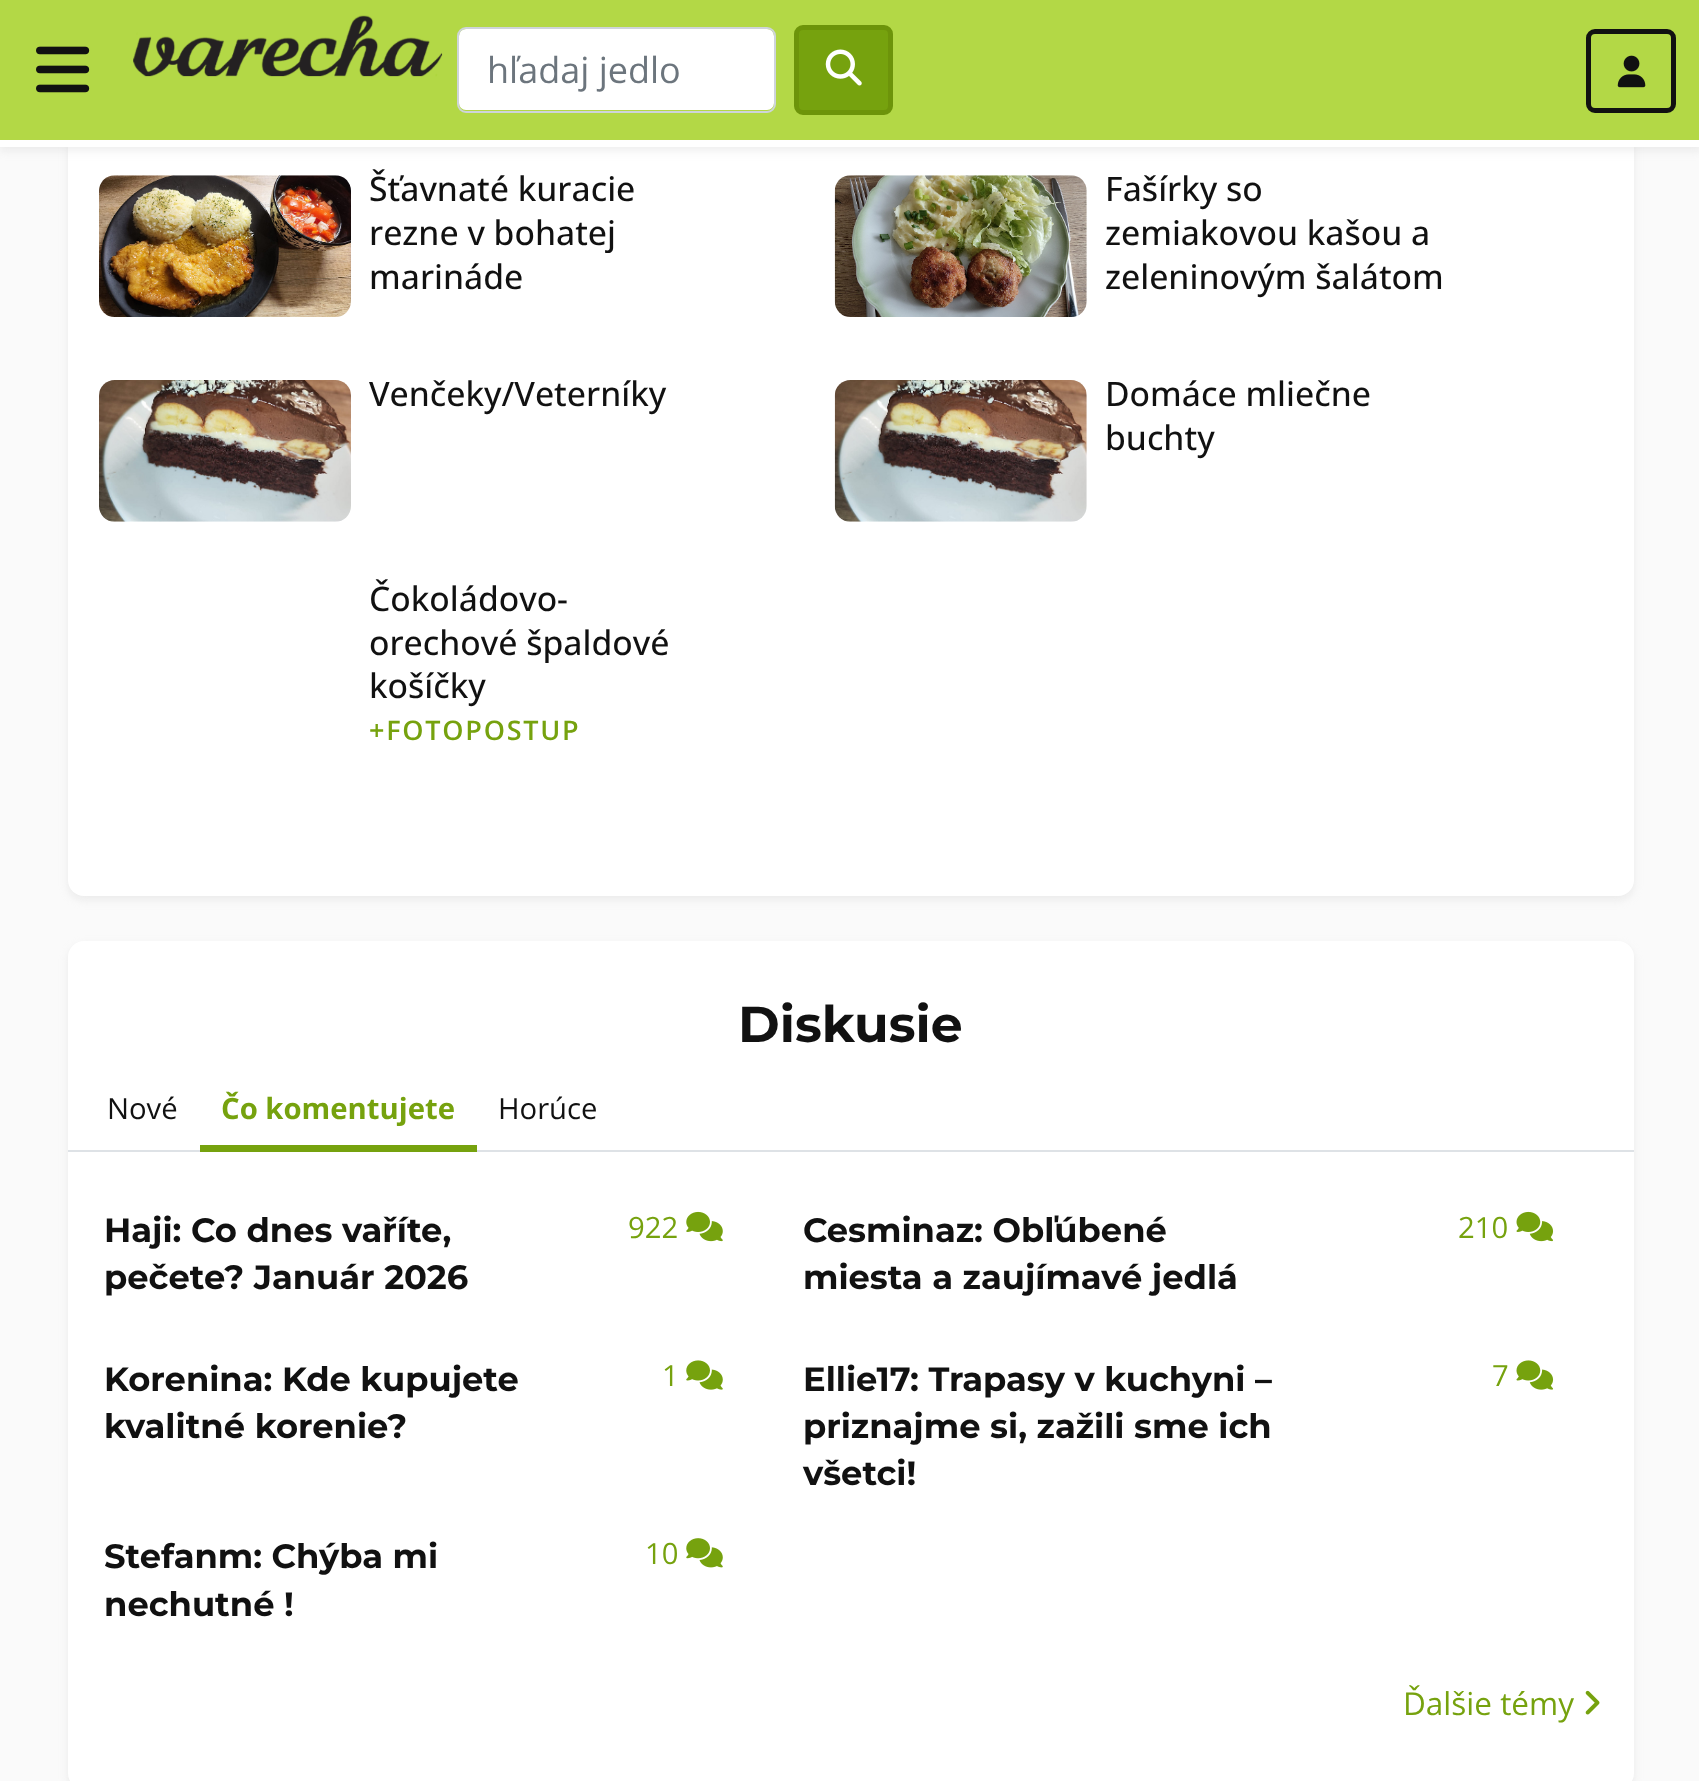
<svg xmlns="http://www.w3.org/2000/svg" width="1699" height="1781">
<rect width="100%" height="100%" fill="#fafafa"/>
<rect x="68" y="-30" width="1566" height="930" rx="16" fill="#cccccc52" filter="blur(4.5px)"/>
<rect x="68" y="-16" width="1566" height="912" rx="16" fill="#fff"/>
<rect y="5" width="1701" height="146" fill="#cccccc52" filter="blur(4.5px)"/>
<rect width="1699" height="140" fill="#b3d846"/>
<rect y="140" width="1699" height="7" fill="#fff"/>
<image x="36" y="46" width="54" height="47" href="media/1.png"/>
<image x="133" y="15" width="310" height="62" href="media/2.png"/>
<rect x="459" y="29" width="315" height="81" rx="7" fill="#fff"/>
<rect x="458" y="28" width="317" height="84" rx="8" fill="none" stroke="#ced4da" stroke-width="2"/>
<text x="487" y="83" style="font-family:Open Sans;font-size:36px;fill:#6c757d">hľadaj jedlo</text>
<rect x="796.5" y="27.5" width="94" height="85" rx="6.5" fill="#76a20e" stroke="#6d940a" stroke-width="5"/>
<image x="825" y="49" width="37" height="37" href="media/3.png"/>
<rect x="1588.5" y="31.5" width="85" height="79" rx="6.5" fill="none" stroke="#111" stroke-width="5"/>
<image x="1617" y="55" width="29" height="33" href="media/4.png"/>
<image x="99" y="175" width="252" height="142" href="media/5.png"/>
<text x="369" y="201" style="font-family:Open Sans;font-size:33.75px;font-weight:500;fill:#111">Šťavnaté kuracie</text>
<text x="369" y="245" style="font-family:Open Sans;font-size:33.75px;font-weight:500;fill:#111">rezne v bohatej</text>
<text x="369" y="289" style="font-family:Open Sans;font-size:33.75px;font-weight:500;fill:#111">marináde</text>
<image x="834" y="175" width="253" height="142" href="media/6.png"/>
<text x="1105" y="201" style="font-family:Open Sans;font-size:33.75px;font-weight:500;fill:#111">Fašírky so</text>
<text x="1105" y="245" style="font-family:Open Sans;font-size:33.75px;font-weight:500;fill:#111">zemiakovou kašou a</text>
<text x="1105" y="289" style="font-family:Open Sans;font-size:33.75px;font-weight:500;fill:#111">zeleninovým šalátom</text>
<image x="99" y="380" width="252" height="142" href="media/7.png"/>
<text x="369" y="406" style="font-family:Open Sans;font-size:33.75px;font-weight:500;fill:#111">Venčeky/Veterníky</text>
<image x="834" y="380" width="253" height="142" href="media/8.png"/>
<text x="1105" y="406" style="font-family:Open Sans;font-size:33.75px;font-weight:500;fill:#111">Domáce mliečne</text>
<text x="1105" y="450" style="font-family:Open Sans;font-size:33.75px;font-weight:500;fill:#111">buchty</text>
<text x="369" y="611" style="font-family:Open Sans;font-size:33.75px;font-weight:500;fill:#111">Čokoládovo-</text>
<text x="369" y="655" style="font-family:Open Sans;font-size:33.75px;font-weight:500;fill:#111">orechové špaldové</text>
<text x="369" y="698" style="font-family:Open Sans;font-size:33.75px;font-weight:500;fill:#111">košíčky</text>
<text x="369" y="740" style="font-family:Open Sans;font-size:27px;font-weight:600;letter-spacing:1.75px;fill:#76a20e">+FOTOPOSTUP</text>
<rect x="68" y="945" width="1566" height="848" rx="16" fill="#cccccc52" filter="blur(4.5px)"/>
<rect x="68" y="941" width="1566" height="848" rx="16" fill="#fff"/>
<text x="738" y="1042" style="font-family:Montserrat;font-size:50.5px;font-weight:bold;fill:#111">Diskusie</text>
<rect x="68" y="1150" width="1566" height="2" fill="#dee2e6"/>
<text x="107" y="1119" style="font-family:Open Sans;font-size:29.25px;fill:#111">Nové</text>
<path d="M209 1073h259c5 0 9 4 9 9v70h-277v-70c0-5 4-9 9-9z" fill="#fff"/>
<rect x="200" y="1145" width="277" height="7" fill="#76a20e"/>
<text x="221" y="1119" style="font-family:Open Sans;font-size:29.25px;font-weight:bold;fill:#76a20e">Čo komentujete</text>
<text x="498" y="1119" style="font-family:Open Sans;font-size:29.25px;fill:#111">Horúce</text>
<text x="104" y="1242" style="font-family:Montserrat;font-size:33.75px;font-weight:bold;fill:#111">Haji: Co dnes vaříte,</text>
<text x="104" y="1289" style="font-family:Montserrat;font-size:33.75px;font-weight:bold;fill:#111">pečete? Január 2026</text>
<text x="628" y="1238" style="font-family:Open Sans;font-size:29.25px;fill:#76a20e">922</text>
<image x="686" y="1211" width="37" height="31" href="media/9.png"/>
<text x="803" y="1242" style="font-family:Montserrat;font-size:33.75px;font-weight:bold;fill:#111">Cesminaz: Obľúbené</text>
<text x="803" y="1289" style="font-family:Montserrat;font-size:33.75px;font-weight:bold;fill:#111">miesta a zaujímavé jedlá</text>
<text x="1458" y="1238" style="font-family:Open Sans;font-size:29.25px;fill:#76a20e">210</text>
<image x="1516" y="1211" width="38" height="31" href="media/10.png"/>
<text x="104" y="1391" style="font-family:Montserrat;font-size:33.75px;font-weight:bold;fill:#111">Korenina: Kde kupujete</text>
<text x="104" y="1438" style="font-family:Montserrat;font-size:33.75px;font-weight:bold;fill:#111">kvalitné korenie?</text>
<text x="662" y="1386" style="font-family:Open Sans;font-size:29.25px;fill:#76a20e">1</text>
<image x="686" y="1360" width="37" height="30" href="media/11.png"/>
<text x="803" y="1391" style="font-family:Montserrat;font-size:33.75px;font-weight:bold;fill:#111">Ellie17: Trapasy v kuchyni –</text>
<text x="803" y="1438" style="font-family:Montserrat;font-size:33.75px;font-weight:bold;fill:#111">priznajme si, zažili sme ich</text>
<text x="803" y="1485" style="font-family:Montserrat;font-size:33.75px;font-weight:bold;fill:#111">všetci!</text>
<text x="1492" y="1386" style="font-family:Open Sans;font-size:29.25px;fill:#76a20e">7</text>
<image x="1516" y="1360" width="38" height="30" href="media/12.png"/>
<text x="104" y="1568" style="font-family:Montserrat;font-size:33.75px;font-weight:bold;fill:#111">Stefanm: Chýba mi</text>
<text x="104" y="1616" style="font-family:Montserrat;font-size:33.75px;font-weight:bold;fill:#111">nechutné !</text>
<text x="645" y="1564" style="font-family:Open Sans;font-size:29.25px;fill:#76a20e">10</text>
<image x="686" y="1538" width="37" height="30" href="media/13.png"/>
<text x="1403" y="1715" style="font-family:Open Sans;font-size:31.5px;fill:#76a20e">Ďalšie témy</text>
<image x="1585" y="1690" width="15" height="25" href="media/14.png"/>
</svg>
